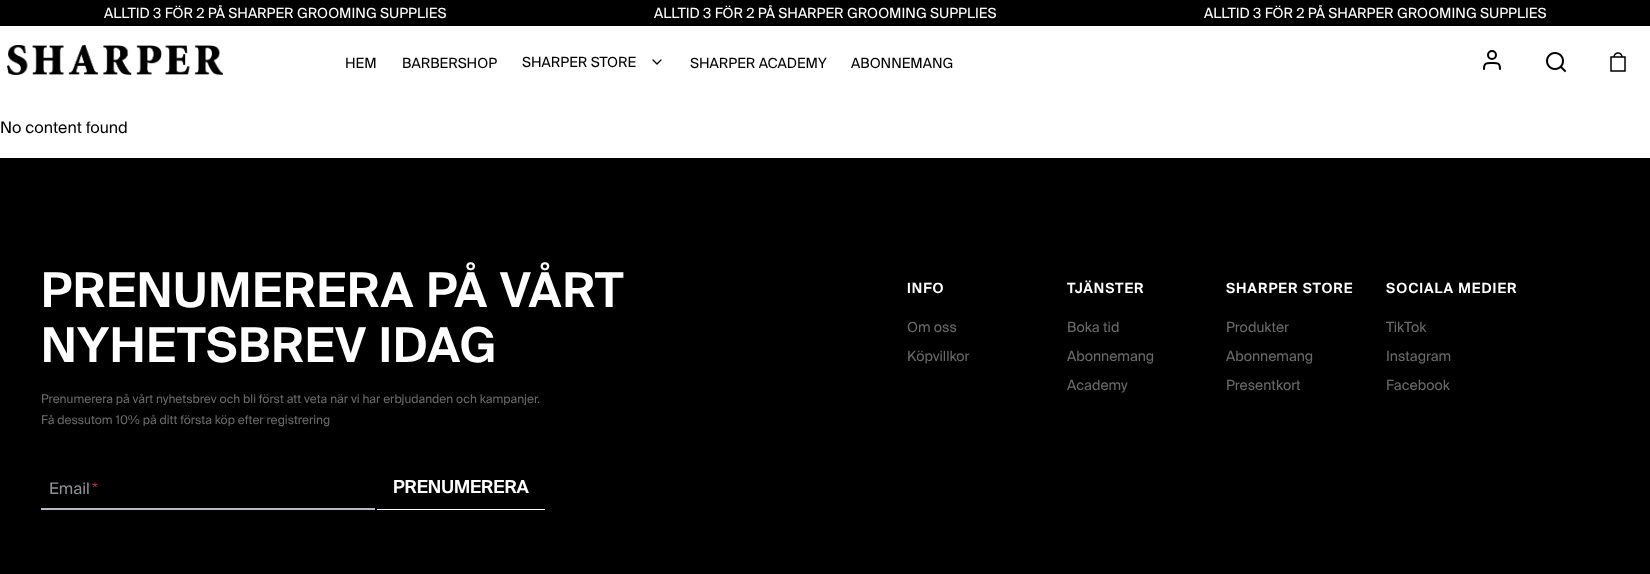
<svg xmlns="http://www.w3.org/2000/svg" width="1650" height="574">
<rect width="100%" height="100%" fill="#fff"/>
<rect width="1650" height="26" fill="#000"/>
<text x="104" y="18" style="font-family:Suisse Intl;font-size:14px;fill:#fff">ALLTID 3 FÖR 2 PÅ SHARPER GROOMING SUPPLIES</text>
<text x="654" y="18" style="font-family:Suisse Intl;font-size:14px;fill:#fff">ALLTID 3 FÖR 2 PÅ SHARPER GROOMING SUPPLIES</text>
<text x="1204" y="18" style="font-family:Suisse Intl;font-size:14px;fill:#fff">ALLTID 3 FÖR 2 PÅ SHARPER GROOMING SUPPLIES</text>
<image x="7" y="45" width="216" height="30" href="media/1.png"/>
<text x="345" y="68" style="font-family:Suisse Intl;font-size:14px;fill:#000">HEM</text>
<text x="402" y="68" style="font-family:Suisse Intl;font-size:14px;fill:#000">BARBERSHOP</text>
<text x="522" y="67" style="font-family:Suisse Intl;font-size:14px;fill:#000">SHARPER STORE</text>
<path d="M653 60l4 4l4-4" fill="none" stroke="#000" stroke-width="1.3" stroke-linecap="round" stroke-linejoin="round"/>
<text x="690" y="68" style="font-family:Suisse Intl;font-size:14px;fill:#000">SHARPER ACADEMY</text>
<text x="851" y="68" style="font-family:Suisse Intl;font-size:14px;fill:#000">ABONNEMANG</text>
<circle cx="1492" cy="55" r="4" fill="none" stroke="#000" stroke-width="2"/>
<path d="M1500 69c0-6.5-2.5-6-8-6c-5.5 0-8-.5-8 6" fill="none" stroke="#000" stroke-width="2" stroke-linecap="round" stroke-linejoin="round"/>
<image x="1546" y="52" width="21" height="21" href="media/2.png"/>
<image x="1610" y="52" width="16" height="20" href="media/3.png"/>
<text x="0" y="133" style="font-family:Suisse Intl;font-size:16px;fill:#000">No content found</text>
<rect y="158" width="1650" height="416" fill="#000"/>
<text x="41" y="307" style="font-family:Suisse Intl;font-size:48px;font-weight:600;letter-spacing:1px;fill:#fff">PRENUMERERA PÅ VÅRT</text>
<text x="41" y="362" style="font-family:Suisse Intl;font-size:48px;font-weight:600;letter-spacing:1px;fill:#fff">NYHETSBREV IDAG</text>
<text x="41" y="403" style="font-family:Suisse Intl;font-size:12px;fill:#6a6a6a">Prenumerera på vårt nyhetsbrev och bli först att veta när vi har erbjudanden och kampanjer.</text>
<text x="41" y="424" style="font-family:Suisse Intl;font-size:12px;fill:#6a6a6a">Få dessutom 10% på ditt första köp efter registrering</text>
<text x="49" y="494" style="font-family:Suisse Intl;font-size:16px;fill:#909097">Email</text>
<text x="92" y="494" style="font-family:Suisse Intl;font-size:16px;fill:#b32d2e">*</text>
<rect x="41" y="508" width="334" height="2" fill="#b9b9c5"/>
<rect x="377" y="509" width="168" height="1" fill="#fff"/>
<text x="393" y="493" style="font-family:Suisse Intl;font-size:18px;font-weight:600;fill:#fff">PRENUMERERA</text>
<text x="907" y="293" style="font-family:Suisse Intl;font-size:14px;font-weight:600;letter-spacing:1px;fill:#fff">INFO</text>
<text x="907" y="332" style="font-family:Suisse Intl;font-size:14px;fill:#6a6a6a">Om oss</text>
<text x="907" y="361" style="font-family:Suisse Intl;font-size:14px;fill:#6a6a6a">Köpvillkor</text>
<text x="1067" y="293" style="font-family:Suisse Intl;font-size:14px;font-weight:600;letter-spacing:1px;fill:#fff">TJÄNSTER</text>
<text x="1067" y="332" style="font-family:Suisse Intl;font-size:14px;fill:#6a6a6a">Boka tid</text>
<text x="1067" y="361" style="font-family:Suisse Intl;font-size:14px;fill:#6a6a6a">Abonnemang</text>
<text x="1067" y="390" style="font-family:Suisse Intl;font-size:14px;fill:#6a6a6a">Academy</text>
<text x="1226" y="293" style="font-family:Suisse Intl;font-size:14px;font-weight:600;letter-spacing:1px;fill:#fff">SHARPER STORE</text>
<text x="1226" y="332" style="font-family:Suisse Intl;font-size:14px;fill:#6a6a6a">Produkter</text>
<text x="1226" y="361" style="font-family:Suisse Intl;font-size:14px;fill:#6a6a6a">Abonnemang</text>
<text x="1226" y="390" style="font-family:Suisse Intl;font-size:14px;fill:#6a6a6a">Presentkort</text>
<text x="1386" y="293" style="font-family:Suisse Intl;font-size:14px;font-weight:600;letter-spacing:1px;fill:#fff">SOCIALA MEDIER</text>
<text x="1386" y="332" style="font-family:Suisse Intl;font-size:14px;fill:#6a6a6a">TikTok</text>
<text x="1386" y="361" style="font-family:Suisse Intl;font-size:14px;fill:#6a6a6a">Instagram</text>
<text x="1386" y="390" style="font-family:Suisse Intl;font-size:14px;fill:#6a6a6a">Facebook</text>
</svg>
